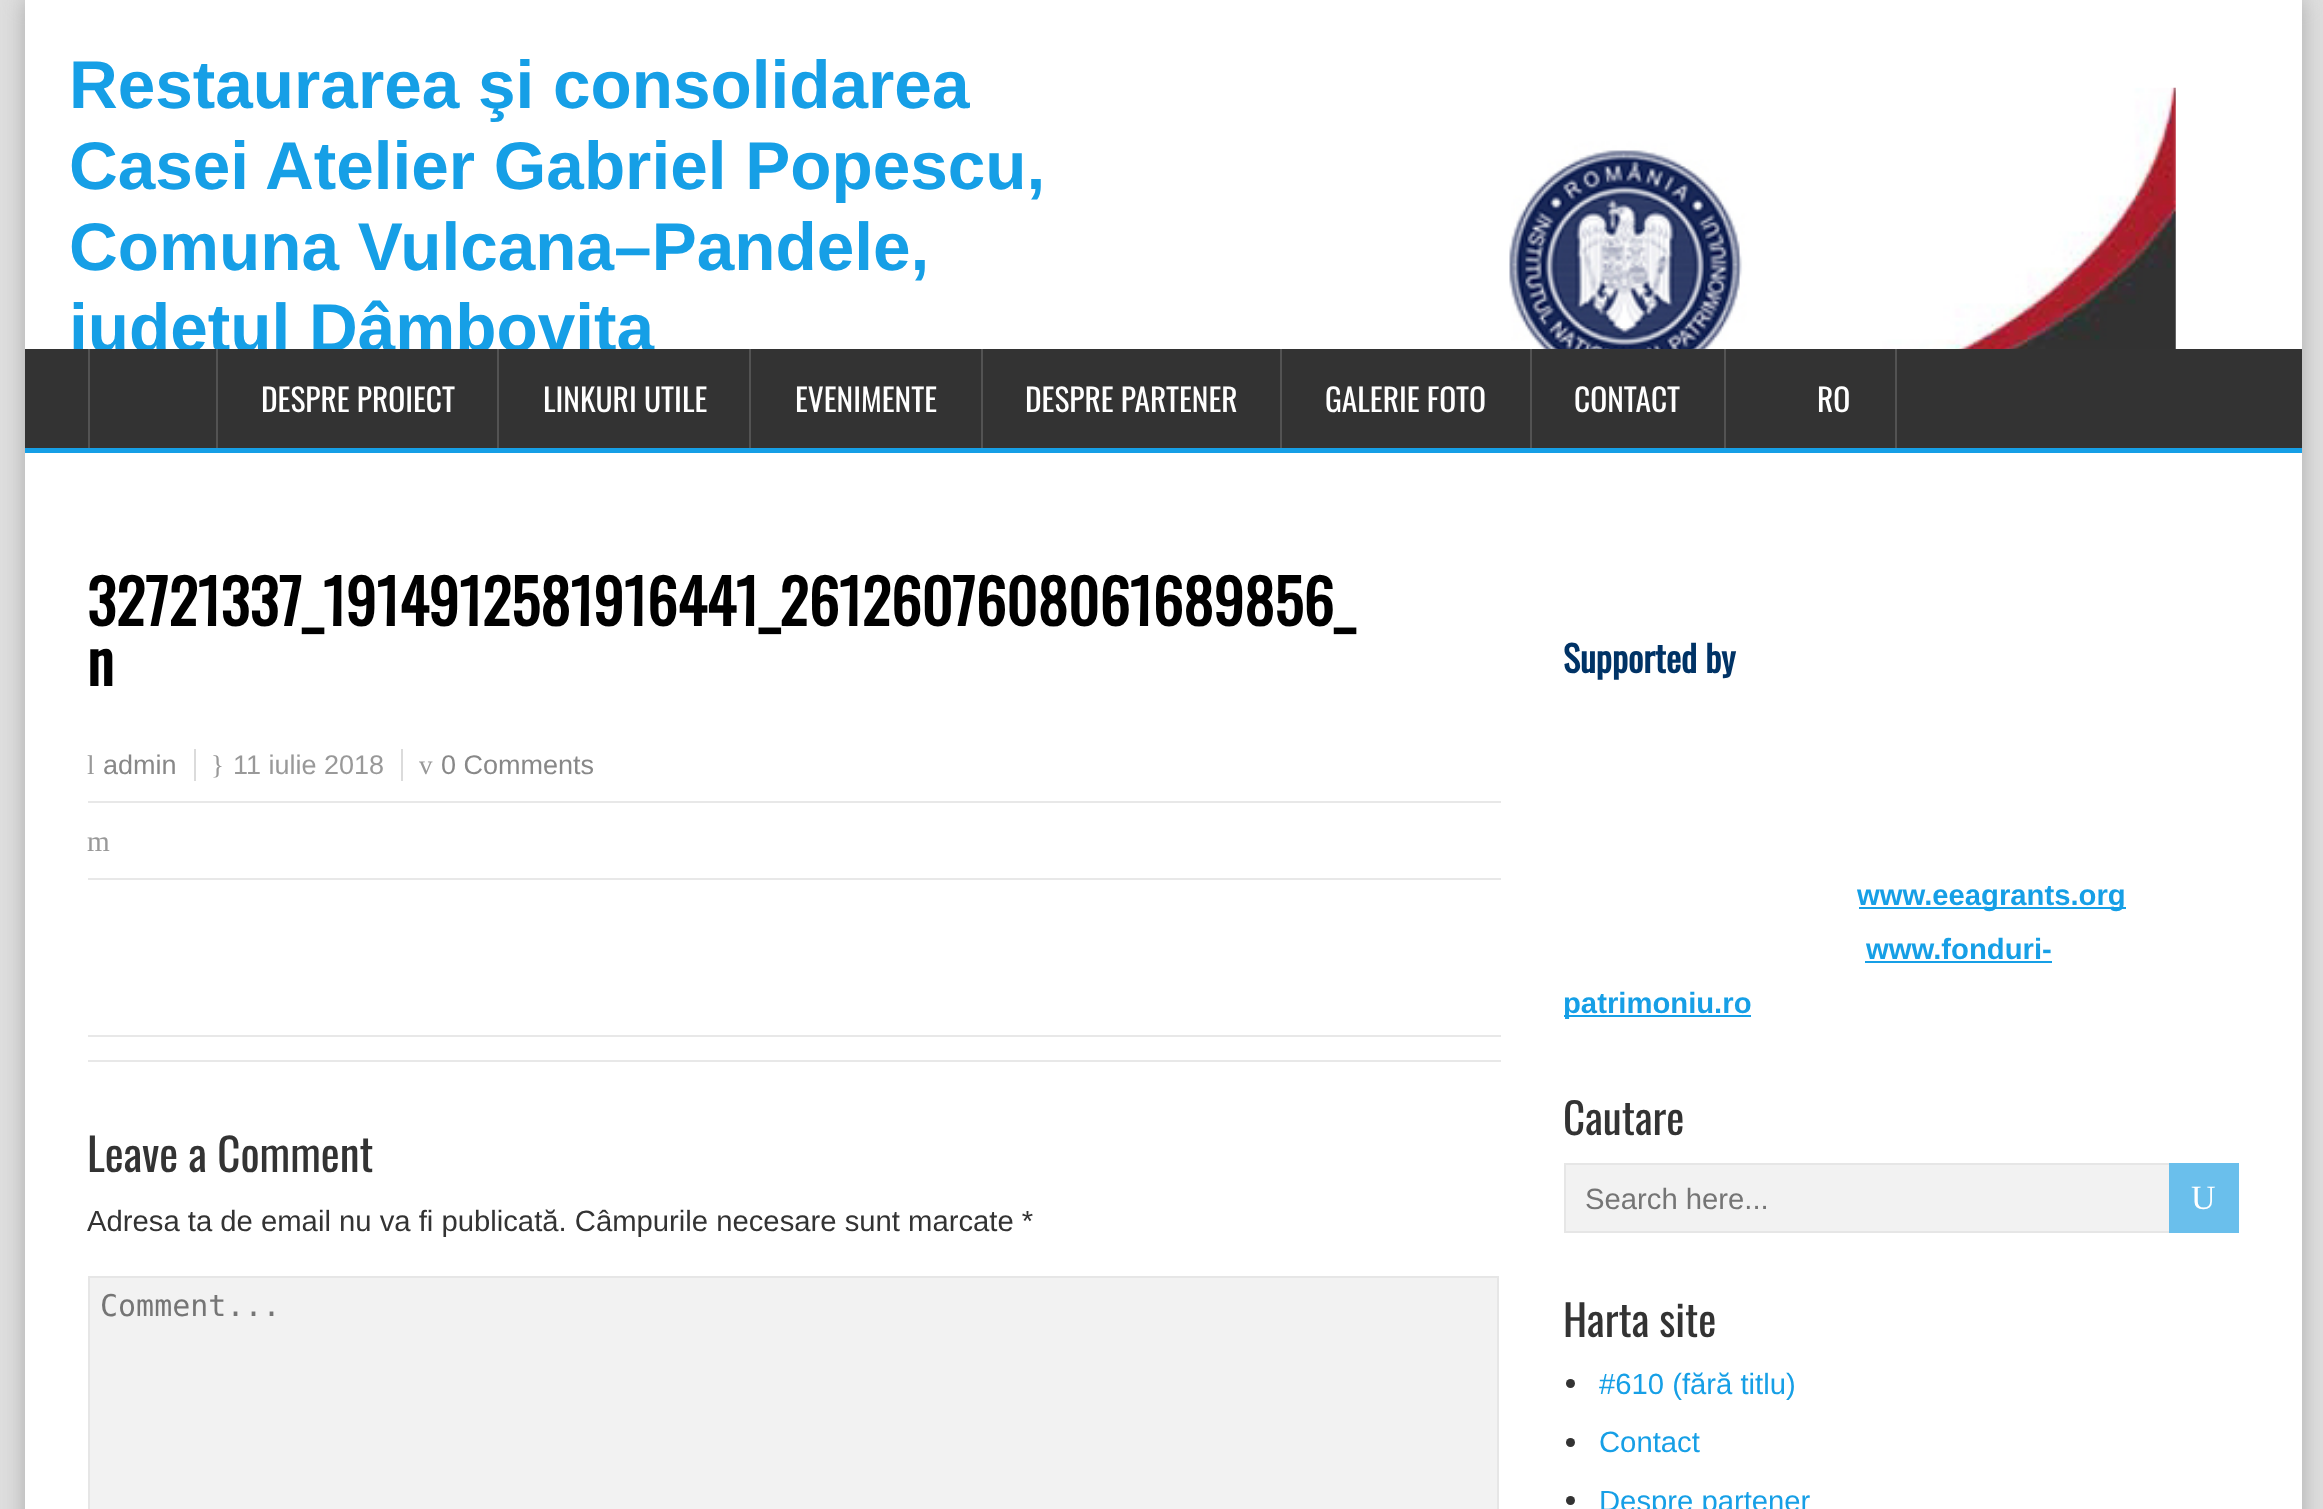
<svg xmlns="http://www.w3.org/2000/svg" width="2323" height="1509">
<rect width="100%" height="100%" fill="#dedede"/>
<rect x="25" width="2277" height="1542" fill="#aaa" filter="blur(11px)"/>
<rect x="25" width="2277" height="1509" fill="#fff"/>
<text x="69" y="108" style="font-family:Liberation Sans;font-size:67.5px;font-weight:bold;fill:#169fe6">Restaurarea şi consolidarea</text>
<text x="69" y="189" style="font-family:Liberation Sans;font-size:67.5px;font-weight:bold;fill:#169fe6">Casei</text>
<text x="265" y="189" style="font-family:Liberation Sans;font-size:67.5px;font-weight:bold;fill:#169fe6">Atelier Gabriel Popescu,</text>
<text x="69" y="270" style="font-family:Liberation Sans;font-size:67.5px;font-weight:bold;fill:#169fe6">Comuna Vulcana–Pandele,</text>
<text x="69" y="351" style="font-family:Liberation Sans;font-size:67.5px;font-weight:bold;fill:#169fe6">judeţul Dâmboviţa</text>
<image x="1509" y="87" width="667" height="262" href="media/1.png"/>
<rect x="25" y="349" width="2277" height="99" fill="#333"/>
<rect x="25" y="448" width="2277" height="5" fill="#169fe6"/>
<rect x="216" y="349" width="2" height="99" fill="#535353"/>
<rect x="88" y="349" width="2" height="99" fill="#535353"/>
<rect x="497" y="349" width="2" height="99" fill="#535353"/>
<text x="261" y="412" style="font-family:Oswald;font-size:31.5px;fill:#fff">DESPRE PROIECT</text>
<rect x="749" y="349" width="2" height="99" fill="#535353"/>
<text x="543" y="412" style="font-family:Oswald;font-size:31.5px;fill:#fff">LINKURI UTILE</text>
<rect x="981" y="349" width="2" height="99" fill="#535353"/>
<text x="795" y="412" style="font-family:Oswald;font-size:31.5px;fill:#fff">EVENIMENTE</text>
<rect x="1280" y="349" width="2" height="99" fill="#535353"/>
<text x="1025" y="412" style="font-family:Oswald;font-size:31.5px;fill:#fff">DESPRE PARTENER</text>
<rect x="1530" y="349" width="2" height="99" fill="#535353"/>
<text x="1325" y="412" style="font-family:Oswald;font-size:31.5px;fill:#fff">GALERIE FOTO</text>
<rect x="1724" y="349" width="2" height="99" fill="#535353"/>
<text x="1574" y="412" style="font-family:Oswald;font-size:31.5px;fill:#fff">CONTACT</text>
<rect x="1895" y="349" width="2" height="99" fill="#535353"/>
<text x="1817" y="412" style="font-family:Oswald;font-size:31.5px;fill:#fff">RO</text>
<text x="87" y="626" style="font-family:Oswald;font-size:60.75px;font-weight:bold;fill:#000">32721337_1914912581916441_2612607608061689856_</text>
<text x="87" y="686" style="font-family:Oswald;font-size:60.75px;font-weight:bold;fill:#000">n</text>
<text x="87" y="774" style="font-family:Liberation Serif;font-size:27px;fill:#999">l</text>
<text x="103" y="774" style="font-family:Liberation Sans;font-size:27px;fill:#888">admin</text>
<text x="211" y="774" style="font-family:Liberation Serif;font-size:27px;fill:#999">}</text>
<rect x="194" y="749" width="2" height="32" fill="#dbdbdb"/>
<text x="233" y="774" style="font-family:Liberation Sans;font-size:27px;fill:#999">11 iulie 2018</text>
<text x="419" y="774" style="font-family:Liberation Serif;font-size:27px;fill:#999">v</text>
<rect x="401" y="749" width="2" height="32" fill="#dbdbdb"/>
<text x="441" y="774" style="font-family:Liberation Sans;font-size:27px;fill:#888">0 Comments</text>
<rect x="88" y="801" width="1413" height="2" fill="#e8e8e8"/>
<rect x="88" y="878" width="1413" height="2" fill="#e8e8e8"/>
<text x="87" y="851" style="font-family:Liberation Serif;font-size:29.25px;fill:#999">m</text>
<rect x="88" y="1035" width="1413" height="2" fill="#e8e8e8"/>
<rect x="88" y="1060" width="1413" height="2" fill="#e8e8e8"/>
<text x="87" y="1172" style="font-family:Oswald;font-size:45px;fill:#333">Leave a Comment</text>
<text x="87" y="1231" style="font-family:Liberation Sans;font-size:29.25px;fill:#333">Adresa ta de email nu va fi publicată. Câmpurile necesare sunt marcate *</text>
<rect x="89" y="1277" width="1409" height="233" fill="#f2f2f2" stroke="#e6e6e6" stroke-width="2"/>
<text x="100" y="1316" style="font-family:DejaVu Sans Mono;font-size:30px;fill:#757575">Comment...</text>
<text x="1563" y="673" style="font-family:Oswald;font-size:36px;font-weight:bold;fill:#036">Supported by</text>
<rect x="1859" y="907" width="267" height="2" fill="#169fe6"/>
<text x="1857" y="905" style="font-family:Liberation Sans;font-size:29.25px;font-weight:bold;fill:#169fe6">www.eeagrants.org</text>
<text x="1866" y="959" style="font-family:Liberation Sans;font-size:29.25px;font-weight:bold;fill:#169fe6">www.fonduri-</text>
<rect x="1865" y="961" width="187" height="2" fill="#169fe6"/>
<rect x="1564" y="1015" width="187" height="2" fill="#169fe6"/>
<text x="1563" y="1013" style="font-family:Liberation Sans;font-size:29.25px;font-weight:bold;fill:#169fe6">patrimoniu.ro</text>
<text x="1563" y="1135" style="font-family:Oswald;font-size:43px;fill:#333">Cautare</text>
<rect x="1566" y="1165" width="603" height="66" fill="#f2f2f2"/>
<rect x="1565" y="1164" width="671" height="68" fill="none" stroke="#e6e6e6" stroke-width="2"/>
<text x="1585" y="1209" style="font-family:Liberation Sans;font-size:29.25px;fill:#757575">Search here...</text>
<rect x="2169" y="1163" width="70" height="70" fill="#6abfec"/>
<text x="2191" y="1209" style="font-family:Liberation Serif;font-size:34px;fill:#fff">U</text>
<text x="1563" y="1337" style="font-family:Oswald;font-size:43px;fill:#333">Harta site</text>
<circle cx="1570.5" cy="1383.5" r="4.5" fill="#333"/>
<text x="1599" y="1394" style="font-family:Liberation Sans;font-size:29.25px;fill:#169fe6">#610 (fără titlu)</text>
<circle cx="1570.5" cy="1442.5" r="4.5" fill="#333"/>
<text x="1599" y="1452" style="font-family:Liberation Sans;font-size:29.25px;fill:#169fe6">Contact</text>
<circle cx="1570.5" cy="1500.5" r="4.5" fill="#333"/>
<text x="1599" y="1511" style="font-family:Liberation Sans;font-size:29.25px;fill:#169fe6">Despre partener</text>
</svg>
